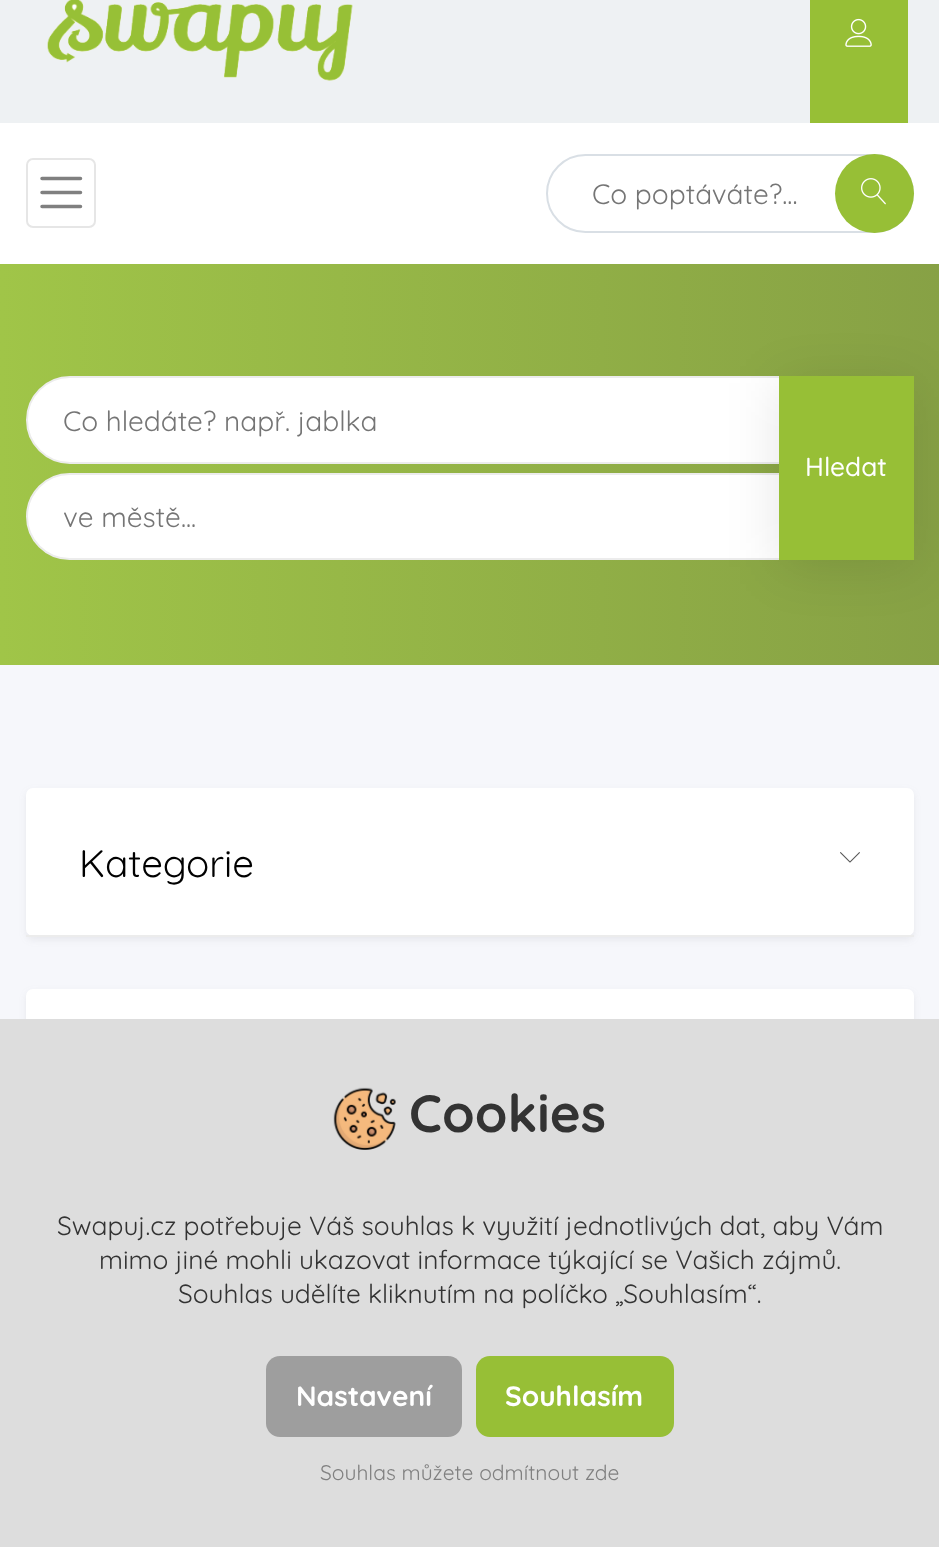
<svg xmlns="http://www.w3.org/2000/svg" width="939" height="1547">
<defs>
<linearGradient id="g1" gradientUnits="userSpaceOnUse" x1="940" y1="465" x2="0" y2="465"><stop offset="0" stop-color="#87a145"/><stop offset="1" stop-color="#a0c548"/></linearGradient>
</defs>
<rect width="100%" height="100%" fill="#fff"/>
<rect width="939" height="123" fill="#eef1f3"/>
<image x="47" y="0" width="306" height="81" href="media/1.png"/>
<rect x="810" width="98" height="123" fill="#97bf36"/>
<image x="845" y="18" width="27" height="29" href="media/2.png"/>
<rect x="27" y="159" width="68" height="68" rx="6" fill="none" stroke="#e6e6e6" stroke-width="2"/>
<path d="M42 178.5h38.5m-38.5 14h38.5m-38.5 14h38.5" fill="none" stroke="#808080" stroke-width="3.5" stroke-linecap="round"/>
<rect x="547" y="155" width="366" height="77" rx="38.5" fill="none" stroke="#d9dfe5" stroke-width="2"/>
<text x="592" y="204" style="font-family:Quicksand;font-size:28px;fill:#757575">Co poptáváte?...</text>
<circle cx="874.5" cy="193.5" r="39.5" fill="#97bf36"/>
<image x="861" y="178" width="25" height="27" href="media/3.png"/>
<rect y="264" width="939" height="401" fill="url(#g1)"/>
<rect x="27" y="377" width="886" height="86" rx="43" fill="#fff" stroke="#ececec" stroke-width="2"/>
<text x="63" y="431" style="font-family:Quicksand;font-size:28px;fill:#757575">Co hledáte? např. jablka</text>
<rect x="27" y="474" width="886" height="85" rx="42.5" fill="#fff" stroke="#ececec" stroke-width="2"/>
<rect x="779" y="383" width="135" height="184" fill="#0000001a" filter="blur(26px)"/>
<rect x="779" y="376" width="135" height="184" fill="#97bf36"/>
<text x="805" y="476" style="font-family:Quicksand;font-size:26.25px;font-weight:500;fill:#fff">Hledat</text>
<text x="63" y="527" style="font-family:Quicksand;font-size:28px;fill:#757575">ve městě...</text>
<rect y="665" width="939" height="354" fill="#f6f7fb"/>
<rect x="26" y="791" width="888" height="149" rx="7" fill="#6c6f731a" filter="blur(3.5px)"/>
<rect x="26" y="788" width="888" height="148" rx="7" fill="#fff"/>
<rect x="26" y="935" width="888" height="2" fill="#ececec"/>
<text x="79" y="877" style="font-family:Quicksand;font-size:38.5px;fill:#000">Kategorie</text>
<image x="840" y="852" width="20" height="11" href="media/4.png"/>
<rect x="26" y="992" width="888" height="284" rx="7" fill="#6c6f731a" filter="blur(3.5px)"/>
<rect x="26" y="989" width="888" height="283" rx="7" fill="#fff"/>
<rect y="1019" width="939" height="528" fill="#ddd"/>
<image x="333" y="1087" width="63" height="63" href="media/5.png"/>
<text x="409" y="1132" style="font-family:Quicksand;font-size:52.5px;font-weight:bold;fill:#333">Cookies</text>
<text x="57" y="1235" style="font-family:Quicksand;font-size:26.25px;fill:#333">Swapuj.cz potřebuje Váš souhlas k využití jednotlivých dat, aby Vám</text>
<text x="99" y="1269" style="font-family:Quicksand;font-size:26.25px;fill:#333">mimo jiné mohli ukazovat informace týkající se Vašich zájmů.</text>
<text x="178" y="1303" style="font-family:Quicksand;font-size:26.25px;fill:#333">Souhlas udělíte kliknutím na políčko „Souhlasím“.</text>
<rect x="266" y="1356" width="196" height="81" rx="14" fill="#9e9e9e"/>
<text x="296" y="1406" style="font-family:Quicksand;font-size:28px;font-weight:bold;fill:#fff">Nastavení</text>
<rect x="476" y="1356" width="198" height="81" rx="14" fill="#97bf36"/>
<text x="505" y="1406" style="font-family:Quicksand;font-size:28px;font-weight:bold;fill:#fff">Souhlasím</text>
<text x="320" y="1480" style="font-family:Quicksand;font-size:21px;fill:#808080">Souhlas můžete odmítnout zde</text>
</svg>
